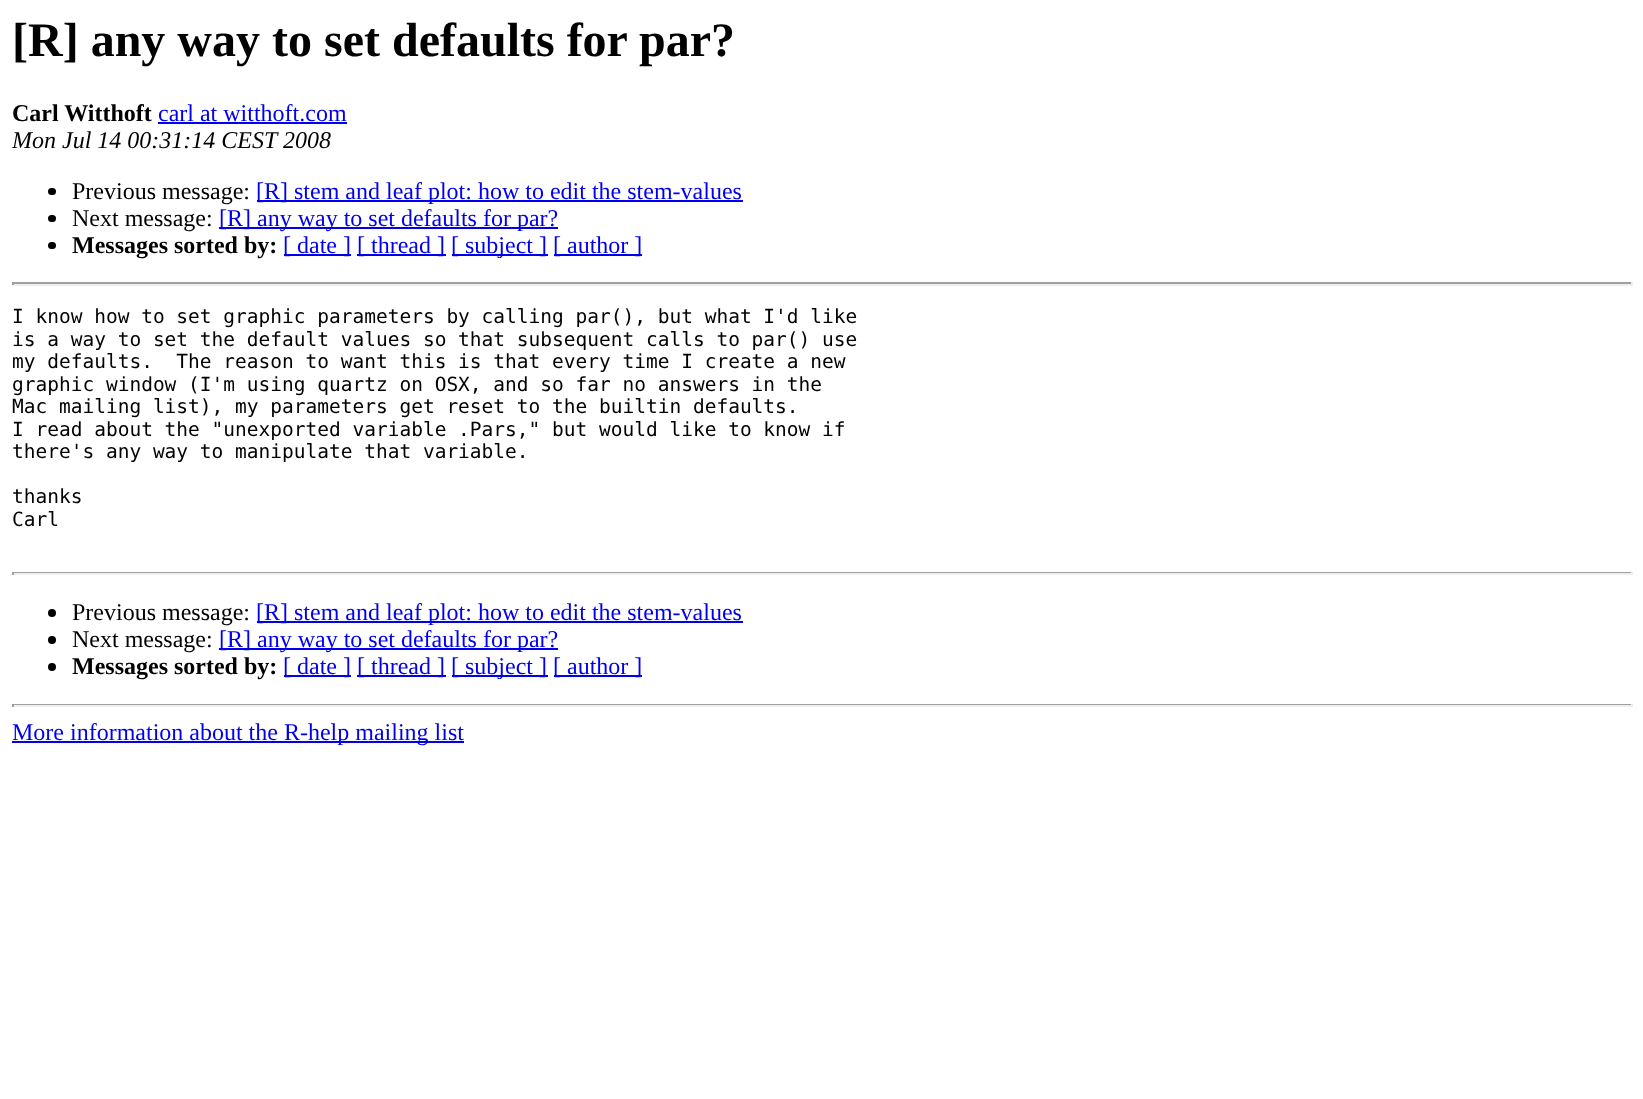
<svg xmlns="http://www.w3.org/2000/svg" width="1643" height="1099">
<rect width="100%" height="100%" fill="#fff"/>
<text x="12" y="56" style="font-family:Liberation Serif;font-size:48px;font-weight:bold;fill:#000">[R] any way to set defaults for par?</text>
<text x="12" y="121" style="font-family:Liberation Serif;font-size:24px;font-weight:bold;fill:#000">Carl Witthoft</text>
<text x="158" y="121" style="font-family:Liberation Serif;font-size:24px;fill:#00e">carl at witthoft.com</text>
<rect x="158" y="122" width="189" height="2" fill="#00e"/>
<text x="12" y="148" style="font-family:Liberation Serif;font-size:24px;font-style:italic;fill:#000">Mon Jul 14 00:31:14 CEST 2008</text>
<rect x="48" y="188" width="8" height="7" rx="3.5" fill="#000"/>
<text x="72" y="199" style="font-family:Liberation Serif;font-size:24px;fill:#000">Previous message:</text>
<rect x="257" y="200" width="486" height="2" fill="#00e"/>
<text x="256" y="199" style="font-family:Liberation Serif;font-size:24px;fill:#00e">[R] stem and leaf plot: how to edit the stem-values</text>
<rect x="48" y="215" width="8" height="7" rx="3.5" fill="#000"/>
<text x="72" y="226" style="font-family:Liberation Serif;font-size:24px;fill:#000">Next message:</text>
<rect x="219" y="227" width="339" height="2" fill="#00e"/>
<text x="219" y="226" style="font-family:Liberation Serif;font-size:24px;fill:#00e">[R] any way to set defaults for par?</text>
<rect x="48" y="242" width="8" height="7" rx="3.5" fill="#000"/>
<text x="72" y="253" style="font-family:Liberation Serif;font-size:24px;font-weight:bold;fill:#000">Messages sorted by:</text>
<rect x="284" y="254" width="67" height="2" fill="#00e"/>
<text x="283" y="253" style="font-family:Liberation Serif;font-size:24px;fill:#00e">[ date ]</text>
<rect x="357" y="254" width="89" height="2" fill="#00e"/>
<text x="357" y="253" style="font-family:Liberation Serif;font-size:24px;fill:#00e">[ thread ]</text>
<rect x="452" y="254" width="96" height="2" fill="#00e"/>
<text x="451" y="253" style="font-family:Liberation Serif;font-size:24px;fill:#00e">[ subject ]</text>
<rect x="554" y="254" width="88" height="2" fill="#00e"/>
<text x="553" y="253" style="font-family:Liberation Serif;font-size:24px;fill:#00e">[ author ]</text>
<rect x="12" y="282" width="1620" height="2" fill="#9f9f9f"/>
<rect x="1631" y="282" width="2" height="3" fill="#eee"/>
<rect x="12" y="284" width="1620" height="2" fill="#eee"/>
<rect x="12" y="282" width="2" height="3" fill="#9f9f9f"/>
<text x="12" y="323" style="font-family:DejaVu Sans Mono;font-size:19.5px;fill:#000">I know how to set graphic parameters by calling par(), but what I'd like</text>
<text x="12" y="346" style="font-family:DejaVu Sans Mono;font-size:19.5px;fill:#000">is a way to set the default values so that subsequent calls to par() use</text>
<text x="12" y="368" style="font-family:DejaVu Sans Mono;font-size:19.5px;fill:#000" xml:space="preserve">my defaults.  The reason to want this is that every time I create a new</text>
<text x="12" y="391" style="font-family:DejaVu Sans Mono;font-size:19.5px;fill:#000">graphic window (I'm using quartz on OSX, and so far no answers in the</text>
<text x="12" y="413" style="font-family:DejaVu Sans Mono;font-size:19.5px;fill:#000">Mac mailing list), my parameters get reset to the builtin defaults.</text>
<text x="12" y="436" style="font-family:DejaVu Sans Mono;font-size:19.5px;fill:#000">I read about the "unexported variable .Pars," but would like to know if</text>
<text x="12" y="458" style="font-family:DejaVu Sans Mono;font-size:19.5px;fill:#000">there's any way to manipulate that variable.</text>
<text x="12" y="503" style="font-family:DejaVu Sans Mono;font-size:19.5px;fill:#000">thanks</text>
<text x="12" y="526" style="font-family:DejaVu Sans Mono;font-size:19.5px;fill:#000">Carl</text>
<rect x="12" y="572" width="1620" height="1" fill="#9f9f9f"/>
<rect x="1631" y="572" width="2" height="3" fill="#eee"/>
<rect x="12" y="573" width="1620" height="2" fill="#eee"/>
<rect x="12" y="572" width="2" height="3" fill="#9f9f9f"/>
<circle cx="52" cy="613" r="4" fill="#000"/>
<text x="72" y="620" style="font-family:Liberation Serif;font-size:24px;fill:#000">Previous message:</text>
<rect x="257" y="621" width="486" height="2" fill="#00e"/>
<text x="256" y="620" style="font-family:Liberation Serif;font-size:24px;fill:#00e">[R] stem and leaf plot: how to edit the stem-values</text>
<circle cx="52" cy="640" r="4" fill="#000"/>
<text x="72" y="647" style="font-family:Liberation Serif;font-size:24px;fill:#000">Next message:</text>
<rect x="219" y="648" width="339" height="2" fill="#00e"/>
<text x="219" y="647" style="font-family:Liberation Serif;font-size:24px;fill:#00e">[R] any way to set defaults for par?</text>
<circle cx="52" cy="667" r="4" fill="#000"/>
<text x="72" y="674" style="font-family:Liberation Serif;font-size:24px;font-weight:bold;fill:#000">Messages sorted by:</text>
<rect x="284" y="675" width="67" height="2" fill="#00e"/>
<text x="283" y="674" style="font-family:Liberation Serif;font-size:24px;fill:#00e">[ date ]</text>
<rect x="357" y="675" width="89" height="2" fill="#00e"/>
<text x="357" y="674" style="font-family:Liberation Serif;font-size:24px;fill:#00e">[ thread ]</text>
<rect x="452" y="675" width="96" height="2" fill="#00e"/>
<text x="451" y="674" style="font-family:Liberation Serif;font-size:24px;fill:#00e">[ subject ]</text>
<rect x="554" y="675" width="88" height="2" fill="#00e"/>
<text x="553" y="674" style="font-family:Liberation Serif;font-size:24px;fill:#00e">[ author ]</text>
<rect x="12" y="704" width="1620" height="1" fill="#9f9f9f"/>
<rect x="1631" y="704" width="2" height="3" fill="#eee"/>
<rect x="12" y="705" width="1620" height="2" fill="#eee"/>
<rect x="12" y="704" width="2" height="3" fill="#9f9f9f"/>
<rect x="12" y="741" width="452" height="2" fill="#00e"/>
<text x="12" y="740" style="font-family:Liberation Serif;font-size:24px;fill:#00e">More information about the R-help mailing list</text>
</svg>
